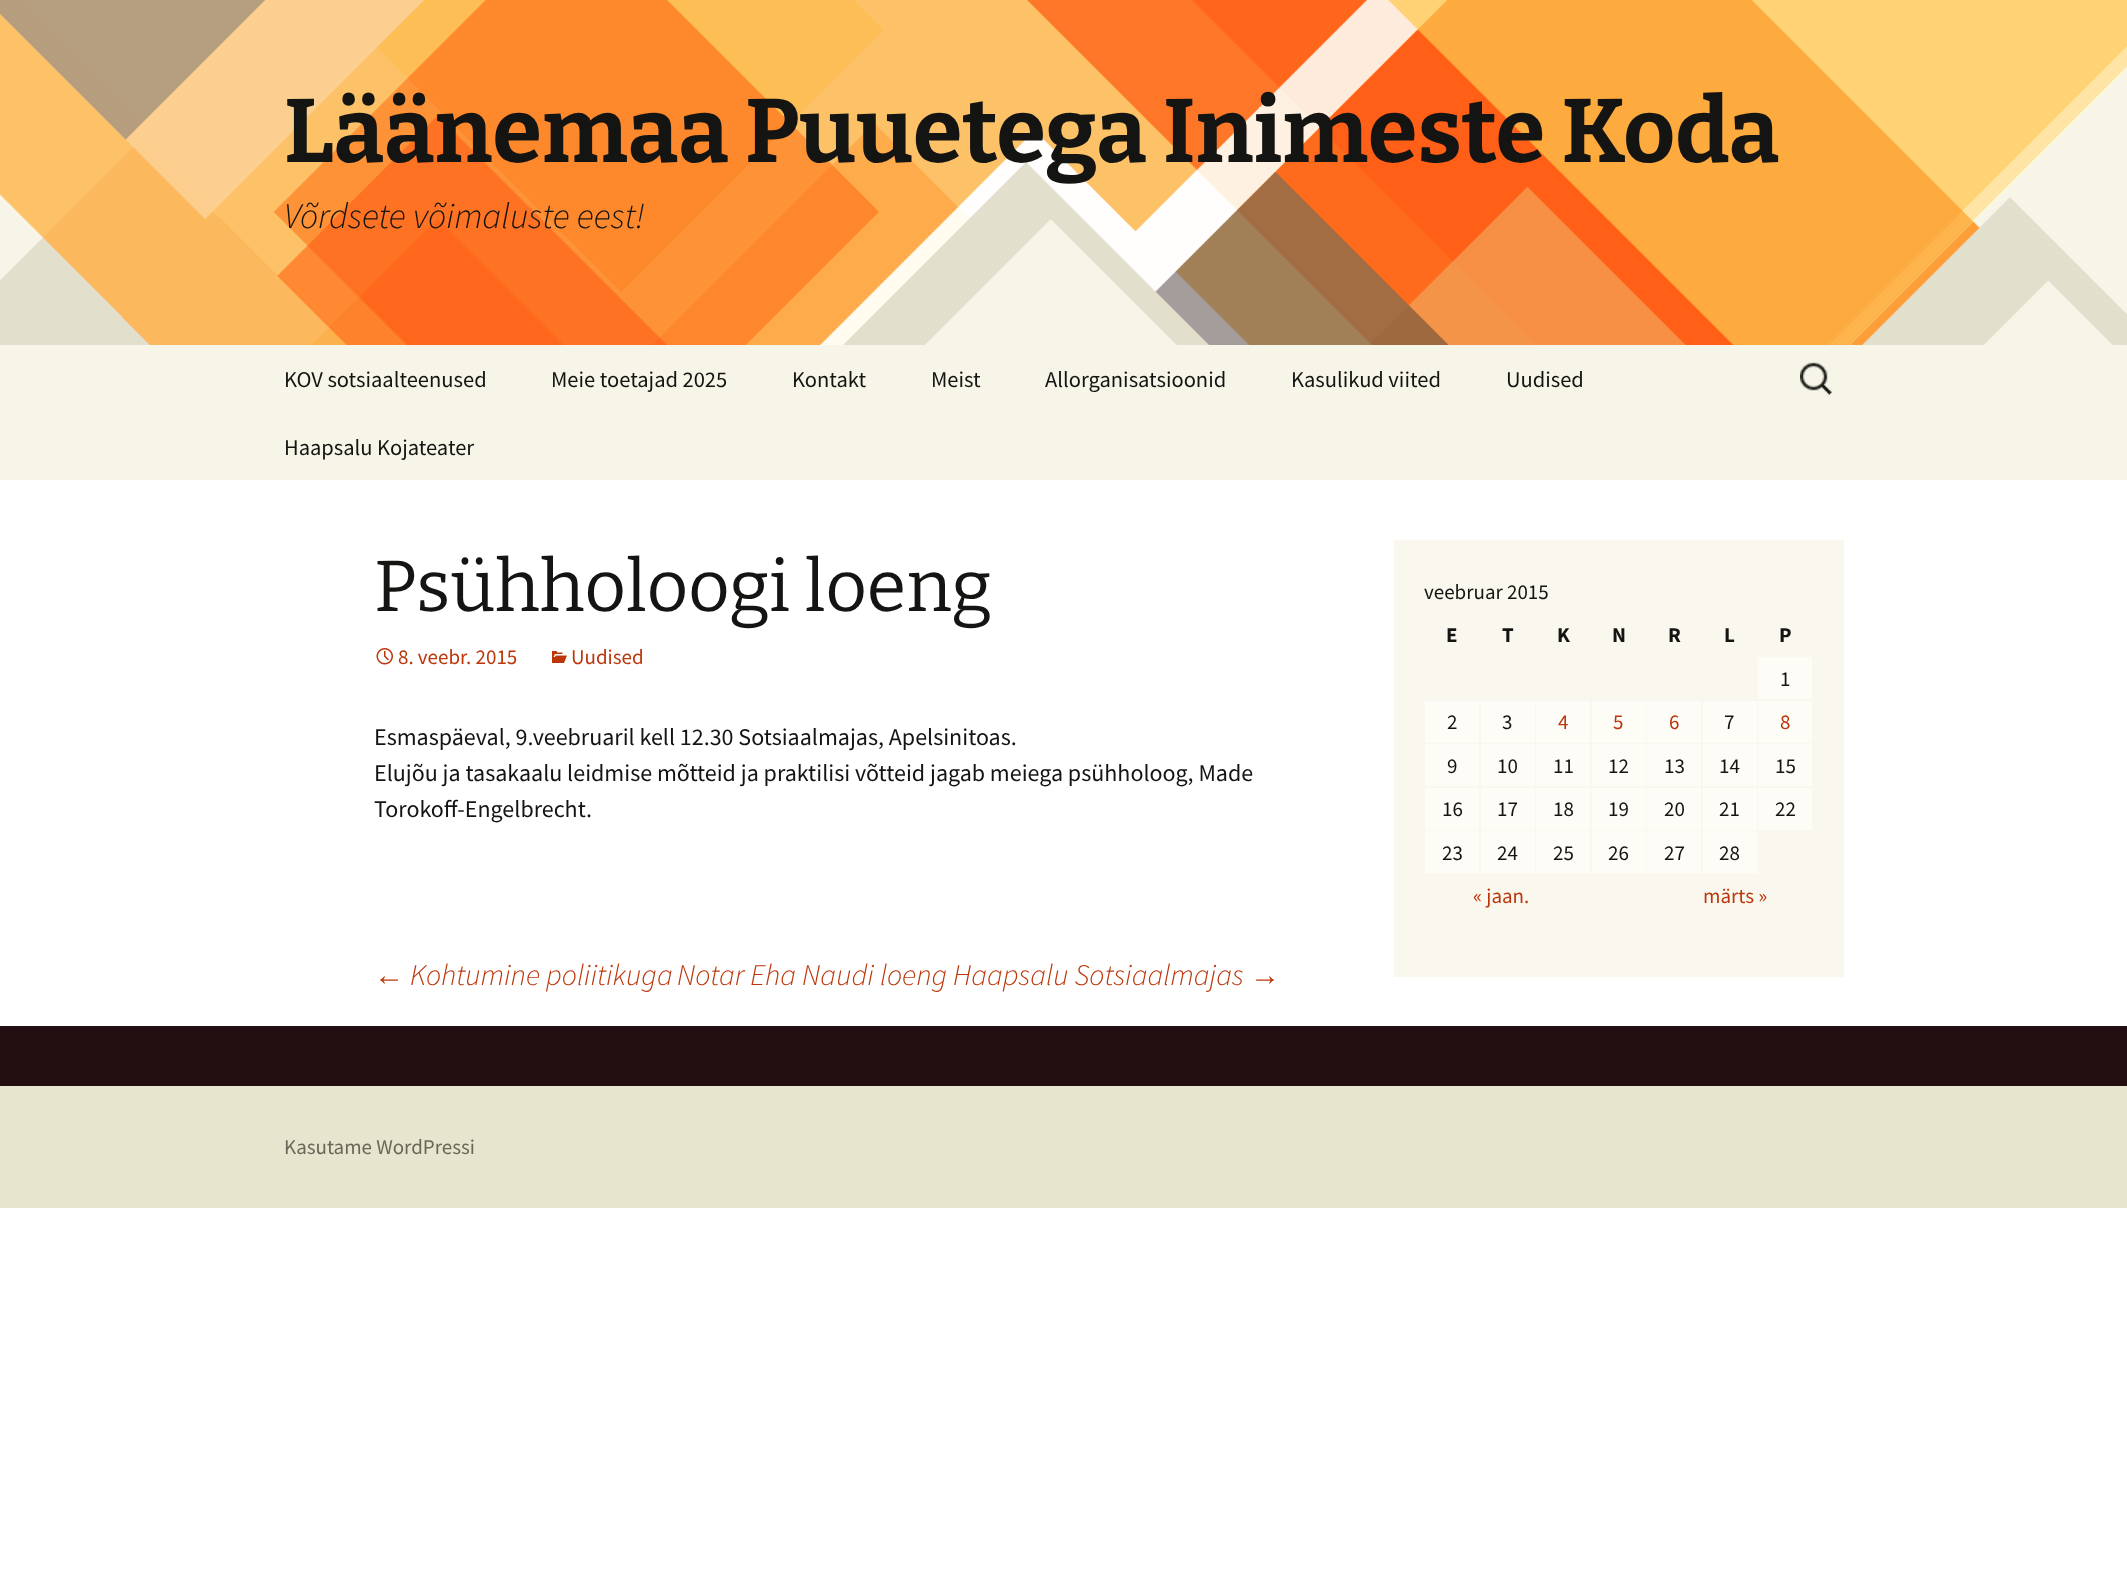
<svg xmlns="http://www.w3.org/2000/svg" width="2127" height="1593">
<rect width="100%" height="100%" fill="#fff"/>
<image x="0" y="0" width="2127" height="345" href="media/1.png"/>
<text x="284" y="162" style="font-family:Bitter;font-size:90px;font-weight:bold;fill:#141412">Läänemaa Puuetega Inimeste Koda</text>
<text x="284" y="228" style="font-family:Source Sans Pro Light;font-size:36px;font-weight:300;font-style:italic;fill:#141412">Võrdsete võimaluste eest!</text>
<rect y="345" width="2127" height="135" fill="#f7f5e7"/>
<text x="284" y="387" style="font-family:Source Sans Pro;font-size:22.5px;fill:#141412">KOV sotsiaalteenused</text>
<text x="551" y="387" style="font-family:Source Sans Pro;font-size:22.5px;fill:#141412">Meie toetajad 2025</text>
<text x="792" y="387" style="font-family:Source Sans Pro;font-size:22.5px;fill:#141412">Kontakt</text>
<text x="931" y="387" style="font-family:Source Sans Pro;font-size:22.5px;fill:#141412">Meist</text>
<text x="1045" y="387" style="font-family:Source Sans Pro;font-size:22.5px;fill:#141412">Allorganisatsioonid</text>
<text x="1291" y="387" style="font-family:Source Sans Pro;font-size:22.5px;fill:#141412">Kasulikud viited</text>
<text x="1506" y="387" style="font-family:Source Sans Pro;font-size:22.5px;fill:#141412">Uudised</text>
<text x="284" y="455" style="font-family:Source Sans Pro;font-size:22.5px;fill:#141412">Haapsalu Kojateater</text>
<image x="1800" y="362" width="32" height="33" href="media/2.png"/>
<text x="374" y="611" style="font-family:Bitter;font-size:72px;fill:#141412">Psühholoogi loeng</text>
<image x="376" y="648" width="17" height="17" href="media/3.png"/>
<text x="398" y="664" style="font-family:Source Sans Pro;font-size:21px;fill:#bc360a">8. veebr. 2015</text>
<image x="552" y="651" width="15" height="12" href="media/4.png"/>
<text x="571" y="664" style="font-family:Source Sans Pro;font-size:21px;fill:#bc360a">Uudised</text>
<text x="374" y="745" style="font-family:Source Sans Pro;font-size:24px;fill:#141412">Esmaspäeval, 9.veebruaril kell 12.30 Sotsiaalmajas, Apelsinitoas.</text>
<text x="374" y="781" style="font-family:Source Sans Pro;font-size:24px;fill:#141412">Elujõu ja tasakaalu leidmise mõtteid ja praktilisi võtteid jagab meiega psühholoog, Made</text>
<text x="374" y="817" style="font-family:Source Sans Pro;font-size:24px;fill:#141412">Torokoff-Engelbrecht.</text>
<text x="374" y="985" style="font-family:Liberation Sans;font-size:30px;font-style:italic;fill:#bc360a">←</text>
<text x="410" y="985" style="font-family:Source Sans Pro Light;font-size:30px;font-weight:300;font-style:italic;fill:#bc360a">Kohtumine poliitikuga</text>
<text x="677" y="985" style="font-family:Source Sans Pro Light;font-size:30px;font-weight:300;font-style:italic;fill:#bc360a">Notar Eha Naudi loeng Haapsalu Sotsiaalmajas</text>
<text x="1250" y="985" style="font-family:Liberation Sans;font-size:30px;font-style:italic;fill:#bc360a">→</text>
<rect x="1394" y="540" width="450" height="437" fill="#faf8ee"/>
<text x="1424" y="599" style="font-family:Source Sans Pro;font-size:21px;fill:#141412">veebruar 2015</text>
<text x="1446" y="642" style="font-family:Source Sans Pro;font-size:21px;font-weight:bold;fill:#141412">E</text>
<text x="1502" y="642" style="font-family:Source Sans Pro;font-size:21px;font-weight:bold;fill:#141412">T</text>
<text x="1557" y="642" style="font-family:Source Sans Pro;font-size:21px;font-weight:bold;fill:#141412">K</text>
<text x="1612" y="642" style="font-family:Source Sans Pro;font-size:21px;font-weight:bold;fill:#141412">N</text>
<text x="1668" y="642" style="font-family:Source Sans Pro;font-size:21px;font-weight:bold;fill:#141412">R</text>
<text x="1724" y="642" style="font-family:Source Sans Pro;font-size:21px;font-weight:bold;fill:#141412">L</text>
<text x="1779" y="642" style="font-family:Source Sans Pro;font-size:21px;font-weight:bold;fill:#141412">P</text>
<rect x="1758" y="657" width="54" height="42" fill="#fdfcf7"/>
<text x="1780" y="686" style="font-family:Source Sans Pro;font-size:21px;fill:#141412">1</text>
<rect x="1425" y="701" width="54" height="42" fill="#fdfcf7"/>
<text x="1447" y="729" style="font-family:Source Sans Pro;font-size:21px;fill:#141412">2</text>
<rect x="1481" y="701" width="54" height="42" fill="#fdfcf7"/>
<text x="1502" y="729" style="font-family:Source Sans Pro;font-size:21px;fill:#141412">3</text>
<rect x="1536" y="701" width="54" height="42" fill="#fdfcf7"/>
<text x="1558" y="729" style="font-family:Source Sans Pro;font-size:21px;fill:#bc360a">4</text>
<rect x="1592" y="701" width="54" height="42" fill="#fdfcf7"/>
<text x="1613" y="729" style="font-family:Source Sans Pro;font-size:21px;fill:#bc360a">5</text>
<rect x="1647" y="701" width="54" height="42" fill="#fdfcf7"/>
<text x="1669" y="729" style="font-family:Source Sans Pro;font-size:21px;fill:#bc360a">6</text>
<rect x="1703" y="701" width="54" height="42" fill="#fdfcf7"/>
<text x="1724" y="729" style="font-family:Source Sans Pro;font-size:21px;fill:#141412">7</text>
<rect x="1758" y="701" width="54" height="42" fill="#fdfcf7"/>
<text x="1780" y="729" style="font-family:Source Sans Pro;font-size:21px;fill:#bc360a">8</text>
<rect x="1425" y="744" width="54" height="42" fill="#fdfcf7"/>
<text x="1447" y="773" style="font-family:Source Sans Pro;font-size:21px;fill:#141412">9</text>
<rect x="1481" y="744" width="54" height="42" fill="#fdfcf7"/>
<text x="1497" y="773" style="font-family:Source Sans Pro;font-size:21px;fill:#141412">10</text>
<rect x="1536" y="744" width="54" height="42" fill="#fdfcf7"/>
<text x="1553" y="773" style="font-family:Source Sans Pro;font-size:21px;fill:#141412">11</text>
<rect x="1592" y="744" width="54" height="42" fill="#fdfcf7"/>
<text x="1608" y="773" style="font-family:Source Sans Pro;font-size:21px;fill:#141412">12</text>
<rect x="1647" y="744" width="54" height="42" fill="#fdfcf7"/>
<text x="1664" y="773" style="font-family:Source Sans Pro;font-size:21px;fill:#141412">13</text>
<rect x="1703" y="744" width="54" height="42" fill="#fdfcf7"/>
<text x="1719" y="773" style="font-family:Source Sans Pro;font-size:21px;fill:#141412">14</text>
<rect x="1758" y="744" width="54" height="42" fill="#fdfcf7"/>
<text x="1775" y="773" style="font-family:Source Sans Pro;font-size:21px;fill:#141412">15</text>
<rect x="1425" y="788" width="54" height="42" fill="#fdfcf7"/>
<text x="1442" y="816" style="font-family:Source Sans Pro;font-size:21px;fill:#141412">16</text>
<rect x="1481" y="788" width="54" height="42" fill="#fdfcf7"/>
<text x="1497" y="816" style="font-family:Source Sans Pro;font-size:21px;fill:#141412">17</text>
<rect x="1536" y="788" width="54" height="42" fill="#fdfcf7"/>
<text x="1553" y="816" style="font-family:Source Sans Pro;font-size:21px;fill:#141412">18</text>
<rect x="1592" y="788" width="54" height="42" fill="#fdfcf7"/>
<text x="1608" y="816" style="font-family:Source Sans Pro;font-size:21px;fill:#141412">19</text>
<rect x="1647" y="788" width="54" height="42" fill="#fdfcf7"/>
<text x="1664" y="816" style="font-family:Source Sans Pro;font-size:21px;fill:#141412">20</text>
<rect x="1703" y="788" width="54" height="42" fill="#fdfcf7"/>
<text x="1719" y="816" style="font-family:Source Sans Pro;font-size:21px;fill:#141412">21</text>
<rect x="1758" y="788" width="54" height="42" fill="#fdfcf7"/>
<text x="1775" y="816" style="font-family:Source Sans Pro;font-size:21px;fill:#141412">22</text>
<rect x="1425" y="831" width="54" height="42" fill="#fdfcf7"/>
<text x="1442" y="860" style="font-family:Source Sans Pro;font-size:21px;fill:#141412">23</text>
<rect x="1481" y="831" width="54" height="42" fill="#fdfcf7"/>
<text x="1497" y="860" style="font-family:Source Sans Pro;font-size:21px;fill:#141412">24</text>
<rect x="1536" y="831" width="54" height="42" fill="#fdfcf7"/>
<text x="1553" y="860" style="font-family:Source Sans Pro;font-size:21px;fill:#141412">25</text>
<rect x="1592" y="831" width="54" height="42" fill="#fdfcf7"/>
<text x="1608" y="860" style="font-family:Source Sans Pro;font-size:21px;fill:#141412">26</text>
<rect x="1647" y="831" width="54" height="42" fill="#fdfcf7"/>
<text x="1664" y="860" style="font-family:Source Sans Pro;font-size:21px;fill:#141412">27</text>
<rect x="1703" y="831" width="54" height="42" fill="#fdfcf7"/>
<text x="1719" y="860" style="font-family:Source Sans Pro;font-size:21px;fill:#141412">28</text>
<text x="1473" y="903" style="font-family:Source Sans Pro;font-size:21px;fill:#bc360a">« jaan.</text>
<text x="1703" y="903" style="font-family:Source Sans Pro;font-size:21px;fill:#bc360a">märts »</text>
<rect y="1086" width="2127" height="122" fill="#e8e5ce"/>
<rect y="1026" width="2127" height="60" fill="#220e10"/>
<text x="284" y="1154" style="font-family:Source Sans Pro;font-size:21px;fill:#686758">Kasutame WordPressi</text>
</svg>
